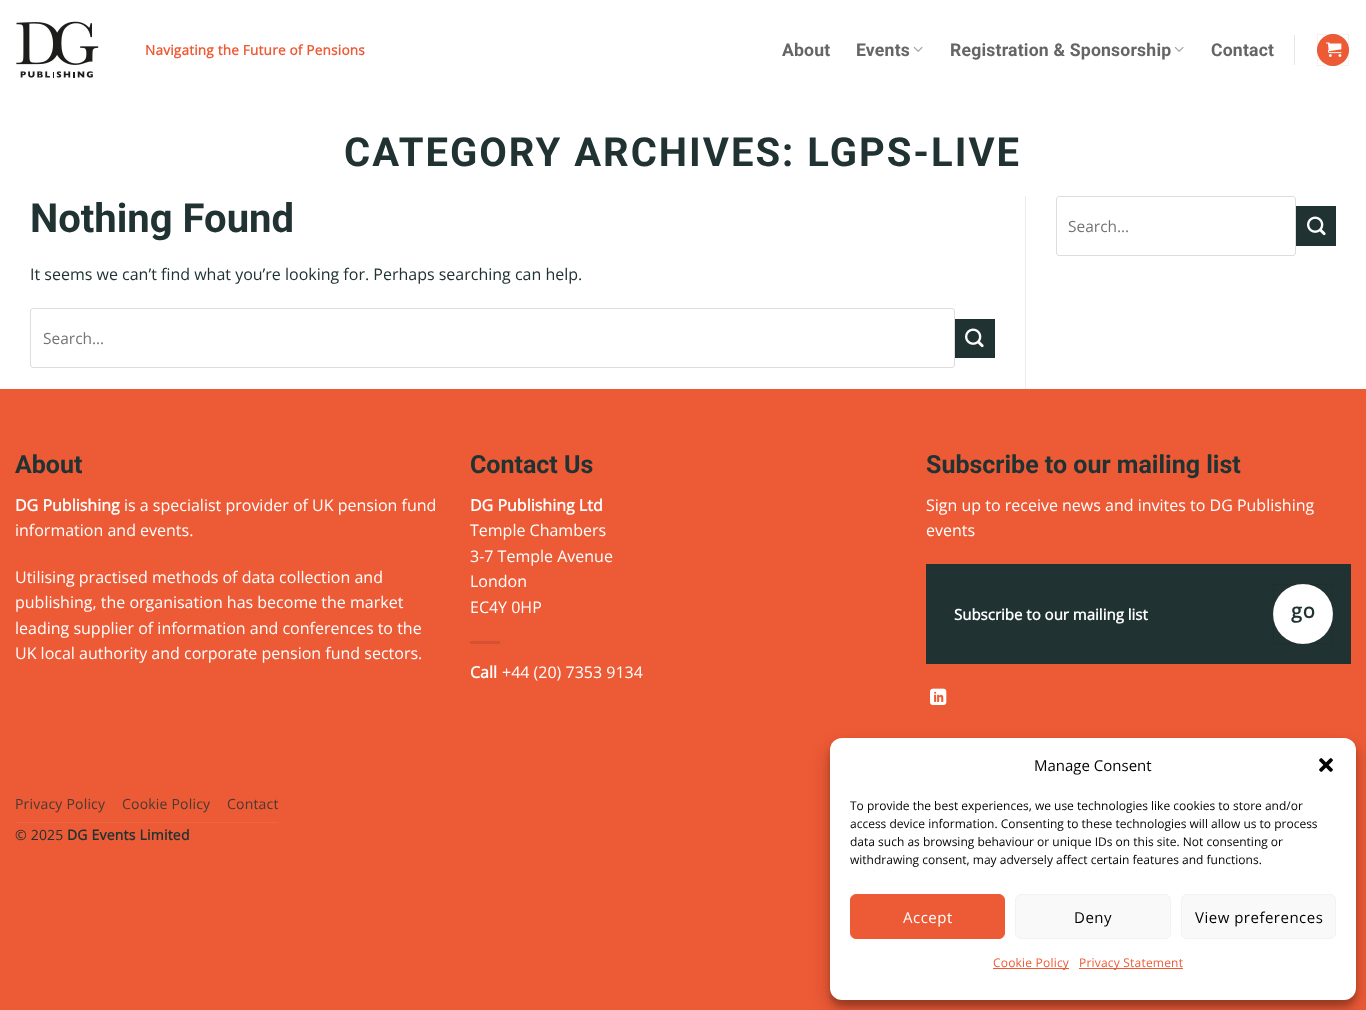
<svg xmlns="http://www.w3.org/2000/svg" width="1366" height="1010">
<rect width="100%" height="100%" fill="#ed5a36"/>
<rect width="1366" height="389" fill="#fff"/>
<image x="16" y="21" width="83" height="57" href="media/1.png"/>
<text x="145" y="55" style="font-family:Open Sans;font-size:13.6px;font-weight:bold;letter-spacing:0.2px;fill:#ed5a36">Navigating the Future of Pensions</text>
<text x="782" y="56" style="font-family:Roboto;font-size:17.6px;font-weight:bold;letter-spacing:0.2px;fill:#656565">About</text>
<text x="856" y="56" style="font-family:Roboto;font-size:17.6px;font-weight:bold;letter-spacing:0.2px;fill:#656565">Events</text>
<image x="913" y="46" width="10" height="6" href="media/2.png"/>
<text x="950" y="56" style="font-family:Roboto;font-size:17.6px;font-weight:bold;letter-spacing:0.2px;fill:#656565">Registration &amp; Sponsorship</text>
<image x="1174" y="46" width="10" height="6" href="media/2.png"/>
<text x="1211" y="56" style="font-family:Roboto;font-size:17.6px;font-weight:bold;letter-spacing:0.2px;fill:#656565">Contact</text>
<rect x="1294" y="35" width="1" height="30" fill="#e6e6e6"/>
<circle cx="1333" cy="50" r="16" fill="#ed5a36"/>
<rect x="1317.5" y="34.5" width="31" height="31" fill="none" stroke="#0000000d"/>
<image x="1326" y="42" width="16" height="15" href="media/3.png"/>
<text x="344" y="166" style="font-family:Roboto;font-size:40px;font-weight:bold;letter-spacing:2px;fill:#203232">CATEGORY ARCHIVES: LGPS-LIVE</text>
<text x="30" y="232" style="font-family:Roboto;font-size:40px;font-weight:bold;fill:#203232">Nothing Found</text>
<text x="30" y="280" style="font-family:Open Sans;font-size:16px;fill:#203232">It seems we can’t find what you’re looking for. Perhaps searching can help.</text>
<rect x="30.5" y="308.5" width="924" height="59" rx="2.5" fill="none" stroke="#ddd"/>
<text x="43" y="344" style="font-family:Open Sans;font-size:15.5px;fill:#757575">Search…</text>
<rect x="955.5" y="319.5" width="39" height="38" fill="#203232" stroke="#1e3030"/>
<image x="965" y="328" width="19" height="20" href="media/4.png"/>
<rect x="1025" y="196" width="1" height="193" fill="#ececec"/>
<rect x="1056.5" y="196.5" width="239" height="59" rx="2.5" fill="none" stroke="#ddd"/>
<text x="1068" y="232" style="font-family:Open Sans;font-size:15.5px;fill:#757575">Search…</text>
<rect x="1296.5" y="206.5" width="39" height="39" fill="#203232" stroke="#1e3030"/>
<image x="1307" y="216" width="19" height="20" href="media/4.png"/>
<text x="15" y="473" style="font-family:Roboto;font-size:25px;font-weight:bold;fill:#203232">About</text>
<text x="15" y="511" style="font-family:Open Sans;font-size:16px;font-weight:bold;fill:#fff">DG Publishing</text>
<text x="124" y="511" style="font-family:Open Sans;font-size:16px;fill:#fff">is a specialist provider of UK pension fund</text>
<text x="15" y="536" style="font-family:Open Sans;font-size:16px;fill:#fff">information and events.</text>
<text x="15" y="583" style="font-family:Open Sans;font-size:16px;fill:#fff">Utilising practised methods of data collection and</text>
<text x="15" y="608" style="font-family:Open Sans;font-size:16px;fill:#fff">publishing, the organisation has become the market</text>
<text x="15" y="634" style="font-family:Open Sans;font-size:16px;fill:#fff">leading supplier of information and conferences to the</text>
<text x="15" y="659" style="font-family:Open Sans;font-size:16px;fill:#fff">UK local authority and corporate pension fund sectors.</text>
<text x="470" y="473" style="font-family:Roboto;font-size:25px;font-weight:bold;fill:#203232">Contact Us</text>
<text x="470" y="511" style="font-family:Open Sans;font-size:16px;font-weight:bold;fill:#fff">DG Publishing Ltd</text>
<text x="470" y="536" style="font-family:Open Sans;font-size:16px;fill:#fff">Temple Chambers</text>
<text x="470" y="562" style="font-family:Open Sans;font-size:16px;fill:#fff">3-7 Temple Avenue</text>
<text x="470" y="587" style="font-family:Open Sans;font-size:16px;fill:#fff">London</text>
<text x="470" y="613" style="font-family:Open Sans;font-size:16px;fill:#fff">EC4Y 0HP</text>
<rect x="470" y="641" width="30" height="3" fill="#d55131"/>
<text x="470" y="678" style="font-family:Open Sans;font-size:16px;font-weight:bold;fill:#fff">Call</text>
<text x="502" y="678" style="font-family:Open Sans;font-size:16px;fill:#fff">+44 (20) 7353 9134</text>
<text x="926" y="473" style="font-family:Roboto;font-size:25px;font-weight:bold;fill:#203232">Subscribe to our mailing list</text>
<text x="926" y="511" style="font-family:Open Sans;font-size:16px;fill:#fff">Sign up to receive news and invites to DG Publishing</text>
<text x="926" y="536" style="font-family:Open Sans;font-size:16px;fill:#fff">events</text>
<rect x="926" y="564" width="425" height="100" fill="#203232"/>
<text x="954" y="620" style="font-family:Open Sans;font-size:15px;font-weight:bold;fill:#fff">Subscribe to our mailing list</text>
<circle cx="1303" cy="614" r="30" fill="#fff"/>
<rect x="1273.5" y="584.5" width="59" height="59" fill="none" stroke="#0000000d"/>
<text x="1291" y="618" style="font-family:Open Sans;font-size:20px;font-weight:bold;letter-spacing:1px;fill:#203232">go</text>
<image x="930" y="688" width="17" height="17" href="media/5.png"/>
<rect x="15" y="822" width="263" height="1" fill="#ee6543"/>
<text x="15" y="809" style="font-family:Open Sans;font-size:14px;letter-spacing:0.2px;fill:#493a33">Privacy Policy</text>
<text x="122" y="809" style="font-family:Open Sans;font-size:14px;letter-spacing:0.2px;fill:#493a33">Cookie Policy</text>
<text x="227" y="809" style="font-family:Open Sans;font-size:14px;letter-spacing:0.2px;fill:#493a33">Contact</text>
<text x="15" y="840" style="font-family:Open Sans;font-size:14px;letter-spacing:0.2px;fill:#203232">© 2025</text>
<text x="67" y="840" style="font-family:Open Sans;font-size:14px;font-weight:bold;letter-spacing:0.2px;fill:#203232">DG Events Limited</text>
<rect x="830" y="744" width="526" height="262" rx="12" fill="#0000003b" filter="blur(3px)"/>
<rect x="830" y="748" width="526" height="262" rx="12" fill="#00000030" filter="blur(10px)"/>
<rect x="830" y="738" width="526" height="262" rx="12" fill="#fff"/>
<text x="1034" y="771" style="font-family:Open Sans;font-size:15px;fill:#000">Manage Consent</text>
<image x="1319" y="758" width="14" height="14" href="media/6.png"/>
<text x="850" y="810" style="font-family:Open Sans;font-size:12px;fill:#000">To provide the best experiences, we use technologies like cookies to store and/or</text>
<text x="850" y="828" style="font-family:Open Sans;font-size:12px;fill:#000">access device information. Consenting to these technologies will allow us to process</text>
<text x="850" y="846" style="font-family:Open Sans;font-size:12px;fill:#000">data such as browsing behaviour or unique IDs on this site. Not consenting or</text>
<text x="850" y="864" style="font-family:Open Sans;font-size:12px;fill:#000">withdrawing consent, may adversely affect certain features and functions.</text>
<rect x="850.5" y="894.5" width="154" height="44" rx="5.5" fill="#ed5a36" stroke="#ed5a36"/>
<text x="903" y="923" style="font-family:Open Sans;font-size:15px;letter-spacing:0.5px;fill:#fff">Accept</text>
<rect x="1015.5" y="894.5" width="155" height="44" rx="5.5" fill="#f9f9f9" stroke="#f2f2f2"/>
<text x="1074" y="923" style="font-family:Open Sans;font-size:15px;letter-spacing:0.5px;fill:#000">Deny</text>
<rect x="1181.5" y="894.5" width="154" height="44" rx="5.5" fill="#f9f9f9" stroke="#f2f2f2"/>
<text x="1195" y="923" style="font-family:Open Sans;font-size:15px;letter-spacing:0.5px;fill:#000">View preferences</text>
<rect x="993" y="968" width="76" height="1" fill="#ed5a36"/>
<text x="993" y="967" style="font-family:Open Sans;font-size:12px;letter-spacing:0.2px;fill:#ed5a36">Cookie Policy</text>
<rect x="1079" y="968" width="104" height="1" fill="#ed5a36"/>
<text x="1079" y="967" style="font-family:Open Sans;font-size:12px;letter-spacing:0.2px;fill:#ed5a36">Privacy Statement</text>
</svg>
